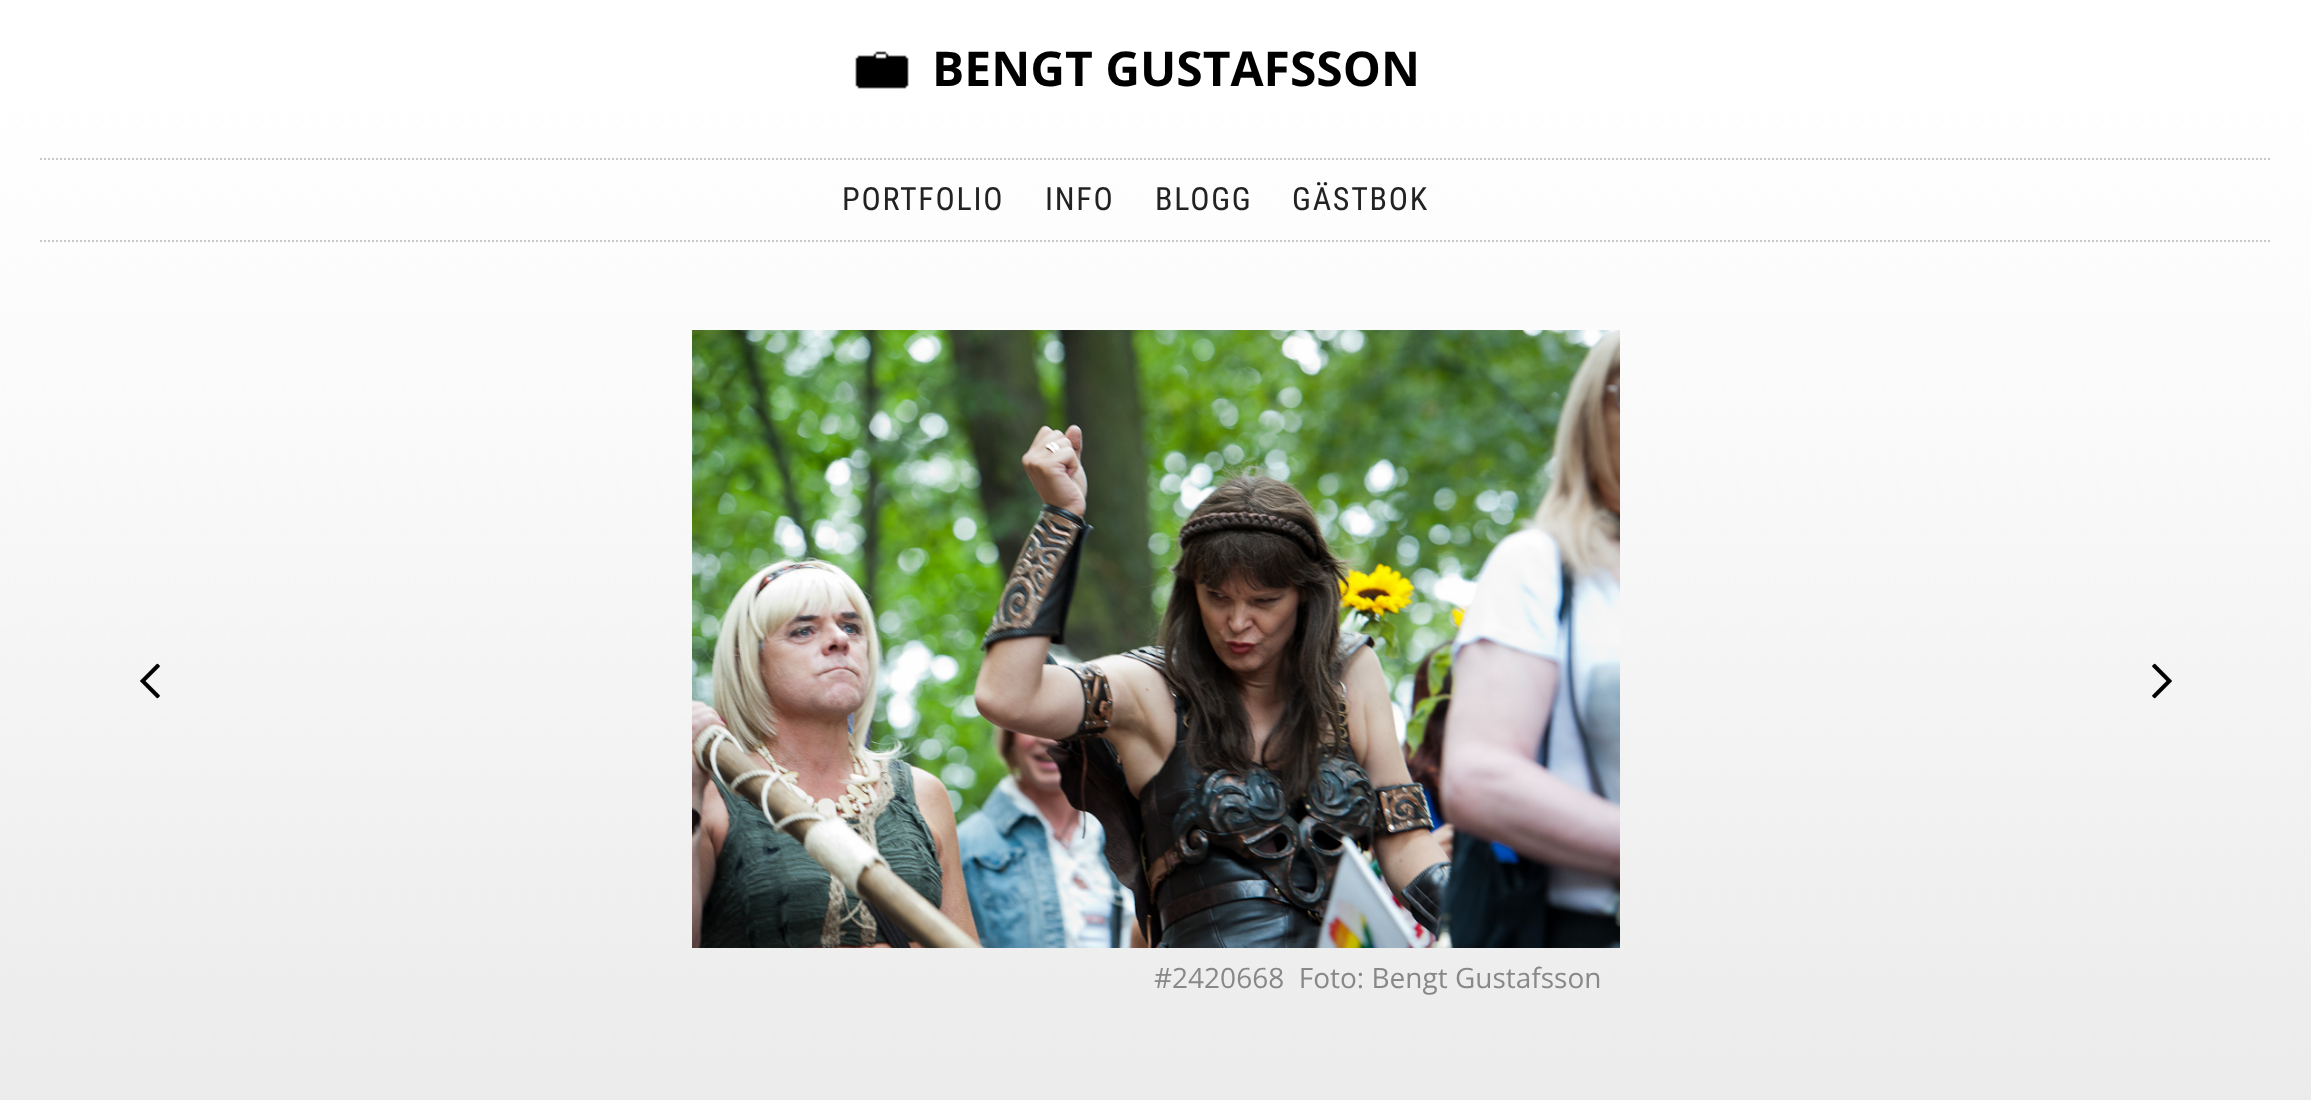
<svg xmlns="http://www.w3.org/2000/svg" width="2311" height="1100">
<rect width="100%" height="100%" fill="#fff"/>
<image x="0" y="0" width="2311" height="1100" href="media/1.png"/>
<image x="855" y="51" width="54" height="38" href="media/2.png"/>
<text x="932" y="86" style="font-family:Open Sans;font-size:48px;font-weight:bold;fill:#000">BENGT GUSTAFSSON</text>
<path d="M40 159h2232" fill="none" stroke="#c8c8c8" stroke-width="2" stroke-dasharray="2 2"/>
<path d="M40 241h2232" fill="none" stroke="#c8c8c8" stroke-width="2" stroke-dasharray="2 2"/>
<text x="842" y="210" style="font-family:Roboto Condensed;font-size:32px;letter-spacing:1.75px;fill:#222">PORTFOLIO</text>
<text x="1045" y="210" style="font-family:Roboto Condensed;font-size:32px;letter-spacing:1.75px;fill:#222">INFO</text>
<text x="1155" y="210" style="font-family:Roboto Condensed;font-size:32px;letter-spacing:1.75px;fill:#222">BLOGG</text>
<text x="1292" y="210" style="font-family:Roboto Condensed;font-size:32px;letter-spacing:1.75px;fill:#222">GÄSTBOK</text>
<image x="140" y="663" width="20" height="36" href="media/3.png"/>
<image x="2152" y="663" width="20" height="36" href="media/4.png"/>
<image x="692" y="330" width="928" height="618" href="media/5.png"/>
<text x="1154" y="988" style="font-family:Open Sans;font-size:28px;fill:#888" xml:space="preserve">#2420668  Foto: Bengt Gustafsson</text>
</svg>
